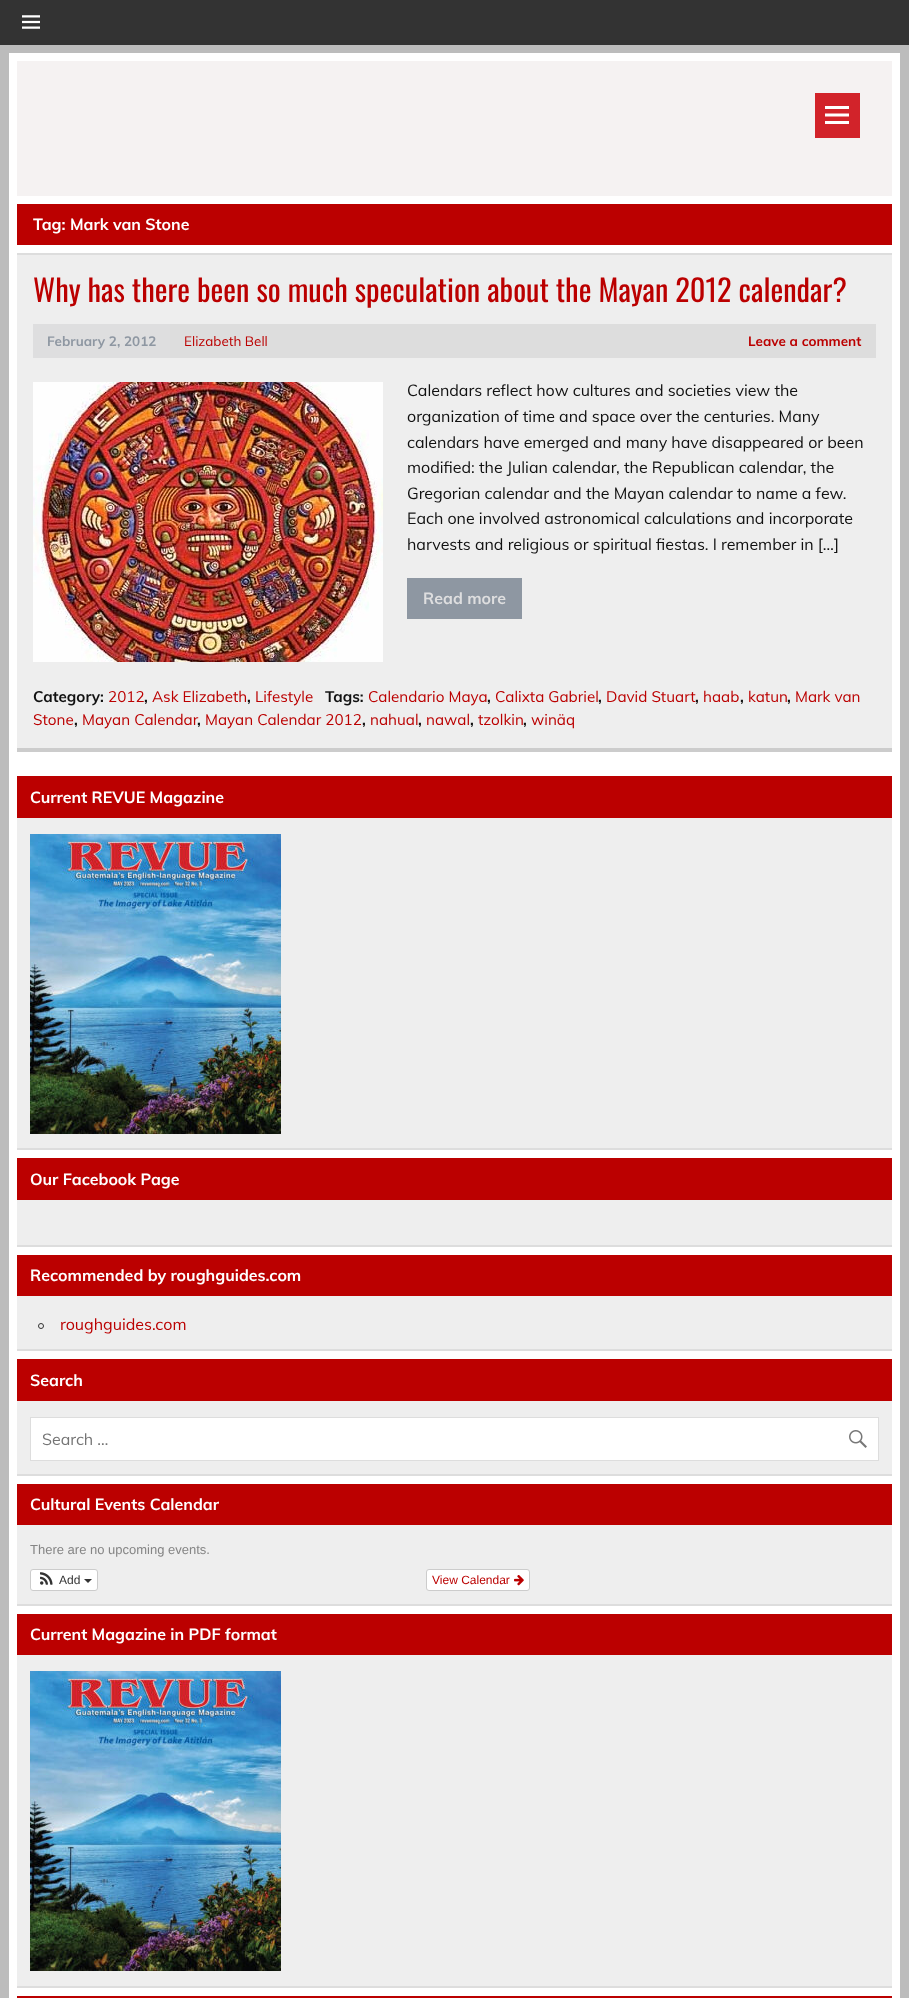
<svg xmlns="http://www.w3.org/2000/svg" width="909" height="1998">
<rect width="100%" height="100%" fill="#bcbcbc"/>
<rect width="909" height="45" fill="#333"/>
<image x="22" y="15" width="18" height="14" href="media/1.png"/>
<rect x="9" y="53" width="891" height="1945" fill="#fff"/>
<rect x="17" y="61" width="875" height="135" fill="#f5f2f2"/>
<rect x="815" y="93" width="45" height="45" fill="#d2232a"/>
<image x="825" y="106" width="24" height="18" href="media/2.png"/>
<rect x="17" y="204" width="875" height="41" fill="#b00"/>
<text x="33" y="230" style="font-family:Muli;font-size:16px;font-weight:bold;fill:#fff">Tag: Mark van Stone</text>
<rect x="17" y="255" width="875" height="493" fill="#eee"/>
<rect x="17" y="253" width="875" height="2" fill="#ddd"/>
<rect x="17" y="748" width="875" height="4" fill="#ccc"/>
<text x="33" y="302" style="font-family:Oswald;font-size:30.4px;fill:#b00">Why has there been so much speculation about the Mayan 2012 calendar?</text>
<rect x="170" y="324" width="706" height="34" fill="#ddd"/>
<rect x="33" y="324" width="137" height="34" fill="#dededf"/>
<text x="47" y="346" style="font-family:Muli;font-size:13.5px;font-weight:bold;fill:#8e97a2">February 2, 2012</text>
<text x="184" y="346" style="font-family:Muli;font-size:13.5px;fill:#b00">Elizabeth Bell</text>
<text x="748" y="346" style="font-family:Muli;font-size:13.5px;font-weight:bold;fill:#b00">Leave a comment</text>
<image x="33" y="382" width="350" height="280" href="media/3.png"/>
<text x="407" y="396" style="font-family:Muli;font-size:16px;fill:#111">Calendars reflect how cultures and societies view the</text>
<text x="407" y="422" style="font-family:Muli;font-size:16px;fill:#111">organization of time and space over the centuries. Many</text>
<text x="407" y="448" style="font-family:Muli;font-size:16px;fill:#111">calendars have emerged and many have disappeared or been</text>
<text x="407" y="473" style="font-family:Muli;font-size:16px;fill:#111">modified: the Julian calendar, the Republican calendar, the</text>
<text x="407" y="499" style="font-family:Muli;font-size:16px;fill:#111">Gregorian calendar and the Mayan calendar to name a few.</text>
<text x="407" y="524" style="font-family:Muli;font-size:16px;fill:#111">Each one involved astronomical calculations and incorporate</text>
<text x="407" y="550" style="font-family:Muli;font-size:16px;fill:#111">harvests and religious or spiritual fiestas. I remember in […]</text>
<rect x="407" y="578" width="115" height="41" fill="#8e97a2"/>
<text x="423" y="604" style="font-family:Muli;font-size:16px;font-weight:bold;fill:#dededf">Read more</text>
<text x="33" y="702" style="font-family:Muli;font-size:15.25px;font-weight:bold;fill:#111">Category:</text>
<text x="108" y="702" style="font-family:Muli;font-size:15.25px;fill:#b00">2012</text>
<text x="144" y="702" style="font-family:Muli;font-size:15.25px;font-weight:bold;fill:#111">,</text>
<text x="152" y="702" style="font-family:Muli;font-size:15.25px;fill:#b00">Ask Elizabeth</text>
<text x="247" y="702" style="font-family:Muli;font-size:15.25px;font-weight:bold;fill:#111">,</text>
<text x="255" y="702" style="font-family:Muli;font-size:15.25px;fill:#b00">Lifestyle</text>
<text x="325" y="702" style="font-family:Muli;font-size:15.25px;font-weight:bold;fill:#111">Tags:</text>
<text x="368" y="702" style="font-family:Muli;font-size:15.25px;fill:#b00">Calendario Maya</text>
<text x="487" y="702" style="font-family:Muli;font-size:15.25px;font-weight:bold;fill:#111">,</text>
<text x="495" y="702" style="font-family:Muli;font-size:15.25px;fill:#b00">Calixta Gabriel</text>
<text x="598" y="702" style="font-family:Muli;font-size:15.25px;font-weight:bold;fill:#111">,</text>
<text x="606" y="702" style="font-family:Muli;font-size:15.25px;fill:#b00">David Stuart</text>
<text x="695" y="702" style="font-family:Muli;font-size:15.25px;font-weight:bold;fill:#111">,</text>
<text x="703" y="702" style="font-family:Muli;font-size:15.25px;fill:#b00">haab</text>
<text x="740" y="702" style="font-family:Muli;font-size:15.25px;font-weight:bold;fill:#111">,</text>
<text x="748" y="702" style="font-family:Muli;font-size:15.25px;fill:#b00">katun</text>
<text x="787" y="702" style="font-family:Muli;font-size:15.25px;font-weight:bold;fill:#111">,</text>
<text x="795" y="702" style="font-family:Muli;font-size:15.25px;fill:#b00">Mark van</text>
<text x="33" y="725" style="font-family:Muli;font-size:15.25px;fill:#b00">Stone</text>
<text x="74" y="725" style="font-family:Muli;font-size:15.25px;font-weight:bold;fill:#111">,</text>
<text x="82" y="725" style="font-family:Muli;font-size:15.25px;fill:#b00">Mayan Calendar</text>
<text x="197" y="725" style="font-family:Muli;font-size:15.25px;font-weight:bold;fill:#111">,</text>
<text x="205" y="725" style="font-family:Muli;font-size:15.25px;fill:#b00">Mayan Calendar 2012</text>
<text x="362" y="725" style="font-family:Muli;font-size:15.25px;font-weight:bold;fill:#111">,</text>
<text x="370" y="725" style="font-family:Muli;font-size:15.25px;fill:#b00">nahual</text>
<text x="418" y="725" style="font-family:Muli;font-size:15.25px;font-weight:bold;fill:#111">,</text>
<text x="426" y="725" style="font-family:Muli;font-size:15.25px;fill:#b00">nawal</text>
<text x="470" y="725" style="font-family:Muli;font-size:15.25px;font-weight:bold;fill:#111">,</text>
<text x="478" y="725" style="font-family:Muli;font-size:15.25px;fill:#b00">tzolkin</text>
<text x="523" y="725" style="font-family:Muli;font-size:15.25px;font-weight:bold;fill:#111">,</text>
<text x="531" y="725" style="font-family:Muli;font-size:15.25px;fill:#b00">winäq</text>
<rect x="17" y="818" width="875" height="330" fill="#eee"/>
<rect x="17" y="1148" width="875" height="2" fill="#ddd"/>
<rect x="17" y="776" width="875" height="42" fill="#b00"/>
<text x="30" y="803" style="font-family:Muli;font-size:16px;font-weight:bold;fill:#fff">Current REVUE Magazine</text>
<image x="30" y="834" width="251" height="300" href="media/4.png"/>
<rect x="17" y="1200" width="875" height="45" fill="#eee"/>
<rect x="17" y="1245" width="875" height="2" fill="#ddd"/>
<rect x="17" y="1158" width="875" height="42" fill="#b00"/>
<text x="30" y="1185" style="font-family:Muli;font-size:16px;font-weight:bold;fill:#fff">Our Facebook Page</text>
<rect x="17" y="1296" width="875" height="53" fill="#eee"/>
<rect x="17" y="1349" width="875" height="2" fill="#ddd"/>
<rect x="17" y="1255" width="875" height="41" fill="#b00"/>
<text x="30" y="1281" style="font-family:Muli;font-size:16px;font-weight:bold;fill:#fff">Recommended by roughguides.com</text>
<circle cx="41" cy="1326" r="2.5" fill="none" stroke="#333"/>
<text x="60" y="1330" style="font-family:Muli;font-size:16px;fill:#b00">roughguides.com</text>
<rect x="17" y="1401" width="875" height="73" fill="#eee"/>
<rect x="17" y="1474" width="875" height="2" fill="#ddd"/>
<rect x="17" y="1359" width="875" height="42" fill="#b00"/>
<text x="30" y="1386" style="font-family:Muli;font-size:16px;font-weight:bold;fill:#fff">Search</text>
<rect x="30.5" y="1417.5" width="848" height="43" fill="#fff" stroke="#ddd"/>
<text x="42" y="1445" style="font-family:Muli;font-size:16px;fill:#757575">Search …</text>
<image x="849" y="1430" width="18" height="18" href="media/5.png"/>
<rect x="17" y="1525" width="875" height="79" fill="#eee"/>
<rect x="17" y="1604" width="875" height="2" fill="#ddd"/>
<rect x="17" y="1484" width="875" height="41" fill="#b00"/>
<text x="30" y="1510" style="font-family:Muli;font-size:16px;font-weight:bold;fill:#fff">Cultural Events Calendar</text>
<text x="30" y="1554" style="font-family:Liberation Sans;font-size:13px;fill:#858585">There are no upcoming events.</text>
<rect x="30.5" y="1569.5" width="67" height="21" rx="2.5" fill="#fff" stroke="#ccc"/>
<image x="40" y="1572" width="13" height="13" href="media/6.png"/>
<text x="59" y="1584" style="font-family:Liberation Sans;font-size:12px;fill:#333">Add</text>
<path d="M84 1579h8l-4 4z" fill="#333"/>
<rect x="426.5" y="1569.5" width="103" height="21" rx="2.5" fill="#fff" stroke="#ccc"/>
<text x="432" y="1584" style="font-family:Liberation Sans;font-size:12px;fill:#b00">View Calendar</text>
<image x="514" y="1575" width="10" height="11" href="media/7.png"/>
<rect x="17" y="1655" width="875" height="331" fill="#eee"/>
<rect x="17" y="1986" width="875" height="2" fill="#ddd"/>
<rect x="17" y="1614" width="875" height="41" fill="#b00"/>
<text x="30" y="1640" style="font-family:Muli;font-size:16px;font-weight:bold;fill:#fff">Current Magazine in PDF format</text>
<image x="30" y="1671" width="251" height="300" href="media/4.png"/>
<rect x="17" y="1996" width="875" height="2" fill="#b00"/>
</svg>
